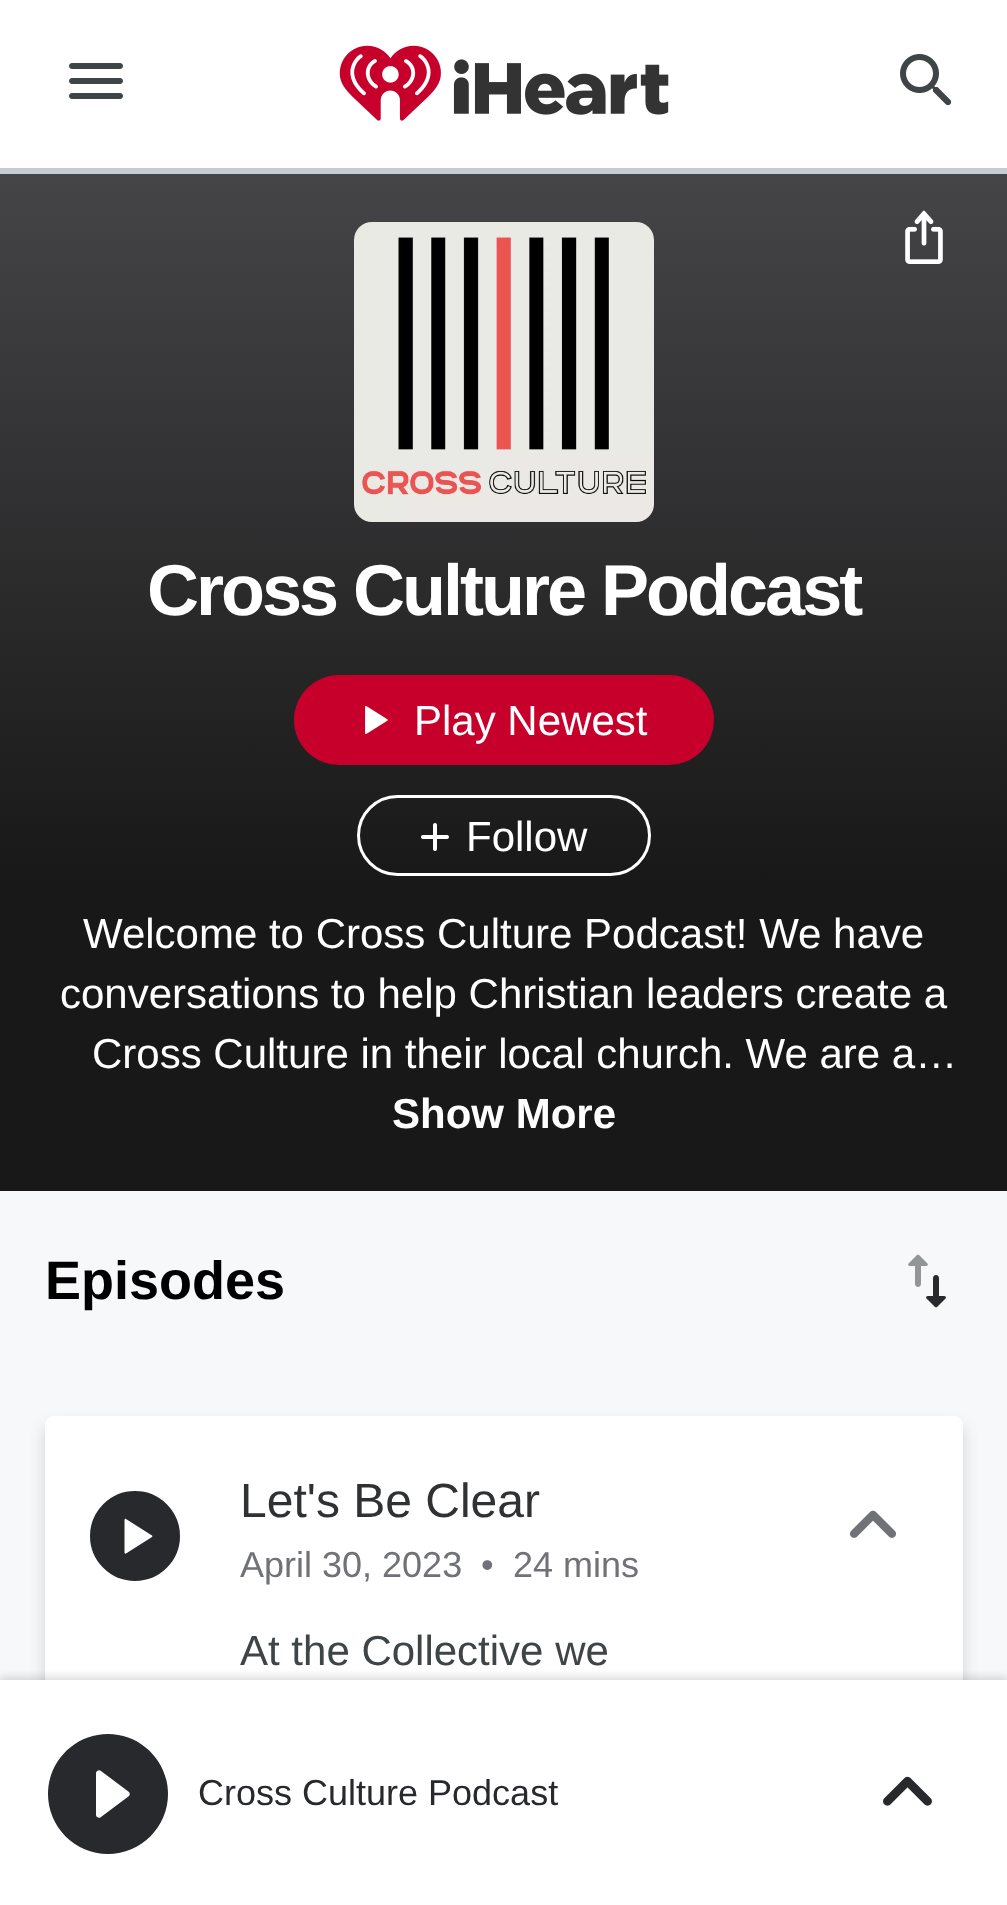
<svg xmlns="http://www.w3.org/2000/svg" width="1007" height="1905">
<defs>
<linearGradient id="g1" gradientUnits="userSpaceOnUse" x1="504" y1="174" x2="504" y2="1191"><stop offset="0" stop-color="#454548"/><stop offset="0.7" stop-color="#181818"/></linearGradient>
</defs>
<rect width="100%" height="100%" fill="#fff"/>
<rect y="168" width="1007" height="6" fill="#c5cdd2"/>
<image x="69" y="63" width="54" height="36" href="media/1.png"/>
<image x="339" y="45" width="330" height="76" href="media/2.png"/>
<image x="900" y="54" width="52" height="52" href="media/3.png"/>
<rect y="174" width="1007" height="1017" fill="url(#g1)"/>
<image x="354" y="222" width="300" height="300" href="media/4.png"/>
<text x="147" y="615" style="font-family:Liberation Sans;font-size:72px;font-weight:bold;letter-spacing:-3px;fill:#fff">Cross Culture Podcast</text>
<rect x="294" y="675" width="420" height="90" rx="45" fill="#c6002b"/>
<image x="365" y="706" width="23" height="28" href="media/5.png"/>
<text x="414" y="735" style="font-family:Liberation Sans;font-size:42px;fill:#fff">Play Newest</text>
<image x="905" y="210" width="38" height="54" href="media/6.png"/>
<rect x="358.5" y="796.5" width="291" height="78" rx="39" fill="none" stroke="#fff" stroke-width="3"/>
<image x="421" y="823" width="28" height="28" href="media/7.png"/>
<text x="466" y="851" style="font-family:Liberation Sans;font-size:42px;fill:#fff">Follow</text>
<text x="83" y="948" style="font-family:Liberation Sans;font-size:42px;fill:#fff">Welcome to Cross Culture Podcast! We have</text>
<text x="60" y="1008" style="font-family:Liberation Sans;font-size:42px;fill:#fff">conversations to help Christian leaders create a</text>
<text x="92" y="1068" style="font-family:Liberation Sans;font-size:42px;fill:#fff">Cross Culture in their local church. We are a…</text>
<text x="392" y="1128" style="font-family:Liberation Sans;font-size:42px;font-weight:bold;fill:#fff">Show More</text>
<rect y="1191" width="1007" height="489" fill="#f6f8f9"/>
<text x="45" y="1299" style="font-family:Liberation Sans;font-size:54px;font-weight:bold;fill:#000">Episodes</text>
<image x="908" y="1254" width="38" height="54" href="media/8.png"/>
<rect x="45" y="1425" width="918" height="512" rx="9" fill="#00000026" filter="blur(7.5px)"/>
<rect x="45" y="1416" width="918" height="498" rx="9" fill="#fff"/>
<circle cx="135" cy="1536" r="43.5" fill="#27292d" stroke="#27292d" stroke-width="3"/>
<path d="M126 1519l26 16.5c.5 .5 .5 1 0 1.5l-26 16.5c-.5 .5-1.5 0-1.5-1v-32.5c0-1 1-1.5 1.5-1z" fill="#fff"/>
<text x="240" y="1517" style="font-family:Liberation Sans;font-size:48px;fill:#2f3133">Let's Be Clear</text>
<text x="240" y="1577" style="font-family:Liberation Sans;font-size:36px;fill:#717277">April 30, 2023</text>
<text x="481" y="1577" style="font-family:Liberation Sans;font-size:36px;fill:#717277">•</text>
<text x="513" y="1577" style="font-family:Liberation Sans;font-size:36px;fill:#717277">24 mins</text>
<image x="849" y="1510" width="47" height="28" href="media/9.png"/>
<text x="240" y="1665" style="font-family:Liberation Sans;font-size:42px;fill:#3f4447">At the Collective we</text>
<rect y="1677" width="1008" height="225" fill="#00000026" filter="blur(4.5px)"/>
<rect y="1680" width="1007" height="225" fill="#fff"/>
<path d="M108 1734c-33 0-60 27-60 60c0 33 27 60 60 60c33 0 60-27 60-60c0-33-27-60-60-60zm-12 81v-42c0-2 3-4 5-2l28 21c1 1 1 3 0 4l-28 21c-2 2-5 0-5-2z" fill="#27292d"/>
<text x="198" y="1805" style="font-family:Liberation Sans;font-size:36px;fill:#27292d">Cross Culture Podcast</text>
<image x="883" y="1776" width="49" height="30" href="media/10.png"/>
</svg>
